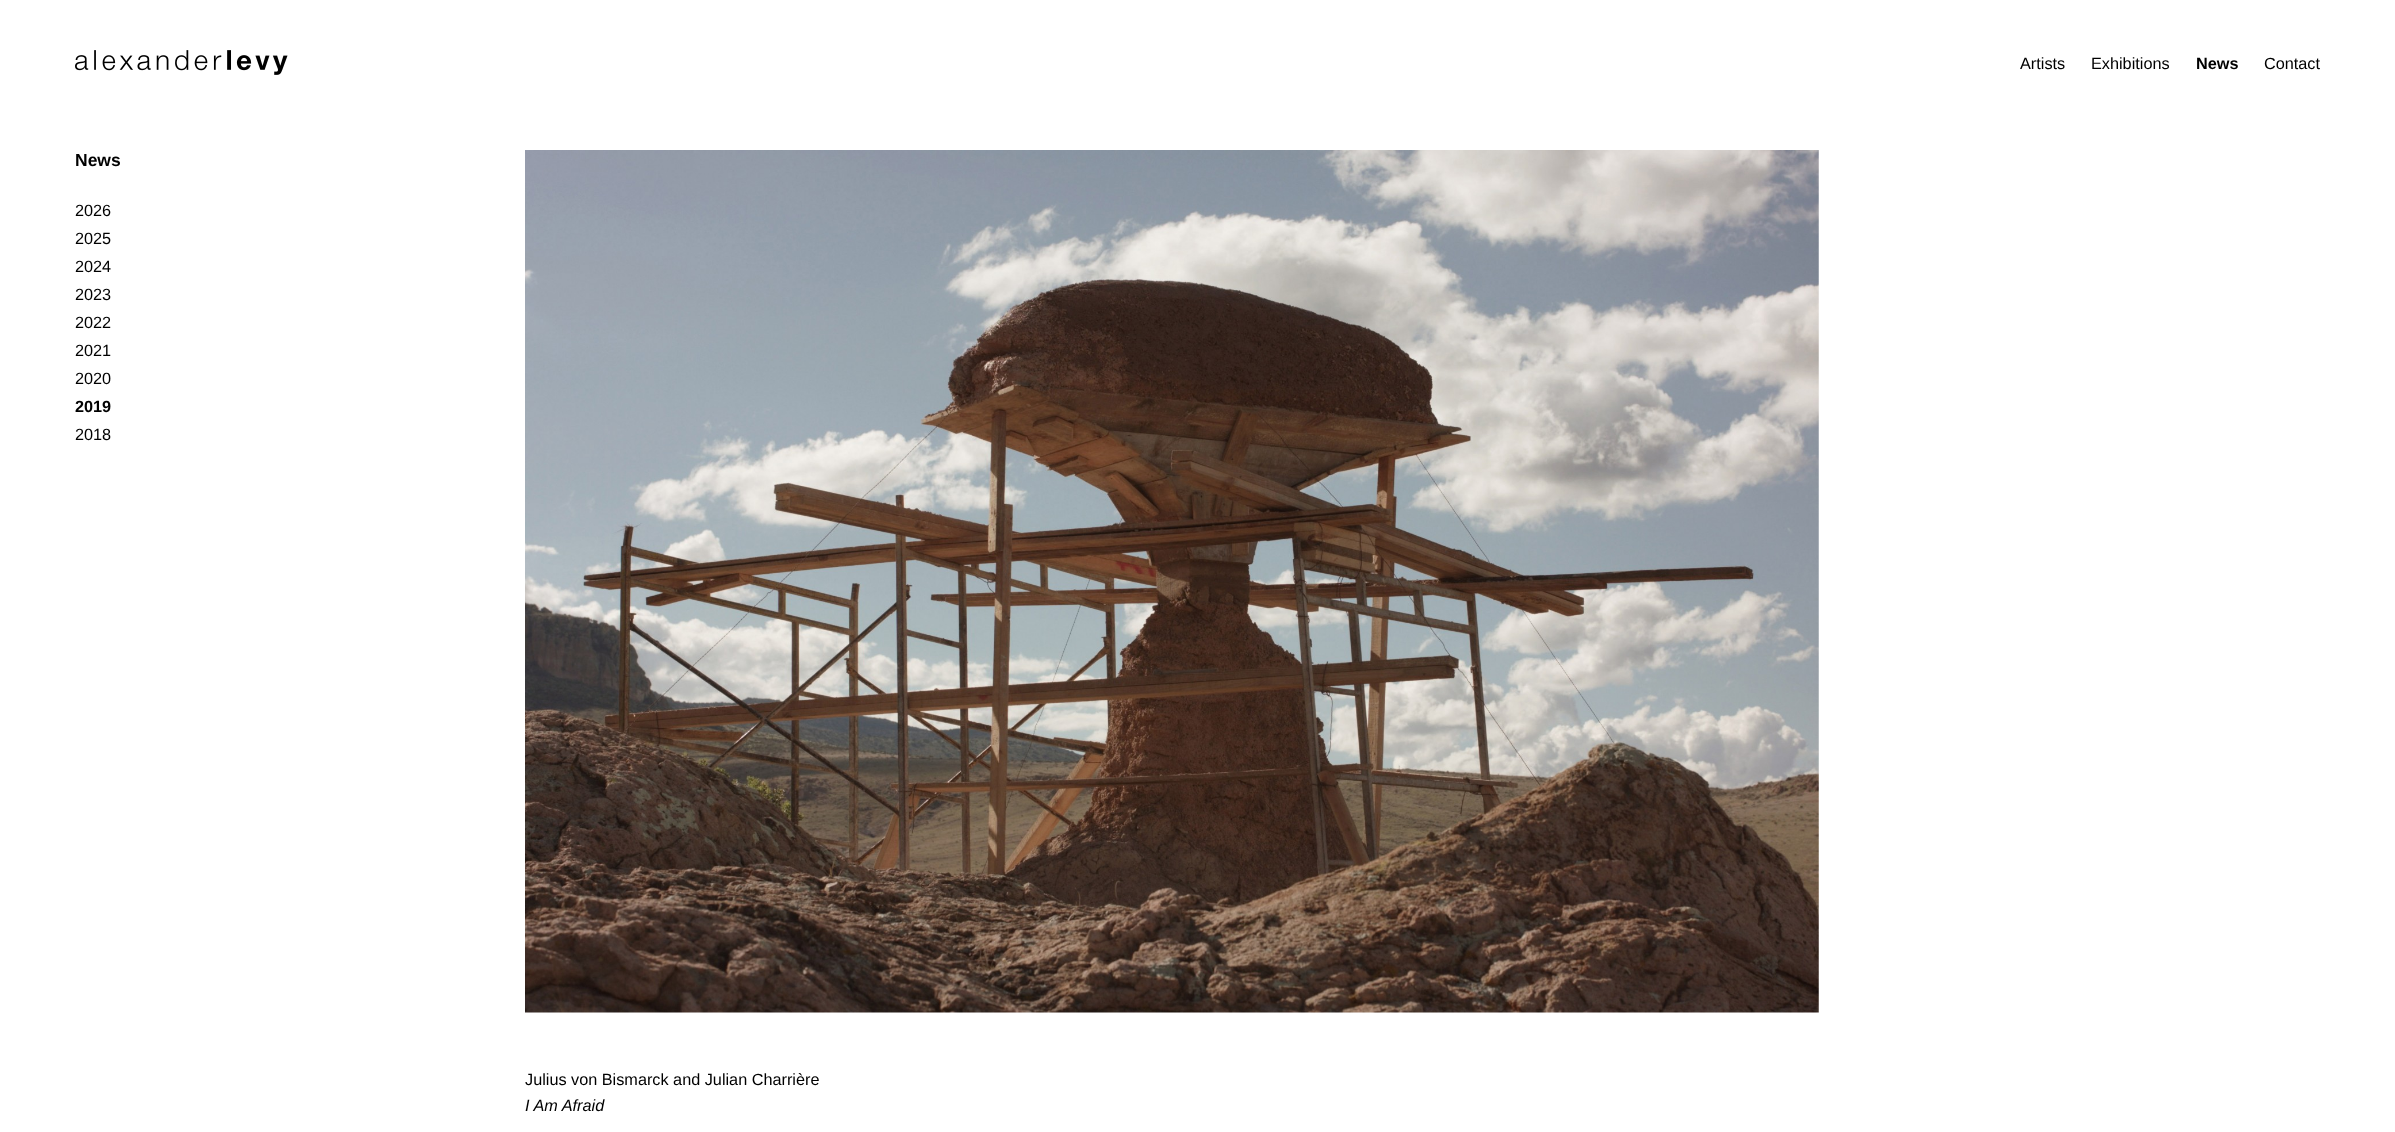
<svg xmlns="http://www.w3.org/2000/svg" width="2395" height="1132">
<rect width="100%" height="100%" fill="#fff"/>
<image x="75" y="50" width="213" height="25" href="media/1.png"/>
<text x="2020" y="69" style="font-family:Liberation Sans;font-size:16.25px;fill:#000">Artists</text>
<text x="2091" y="69" style="font-family:Liberation Sans;font-size:16.25px;fill:#000">Exhibitions</text>
<text x="2196" y="69" style="font-family:Liberation Sans;font-size:16.25px;font-weight:bold;fill:#000">News</text>
<text x="2264" y="69" style="font-family:Liberation Sans;font-size:16.25px;fill:#000">Contact</text>
<text x="75" y="166" style="font-family:Liberation Sans;font-size:17.5px;font-weight:bold;fill:#000">News</text>
<text x="75" y="216" style="font-family:Liberation Sans;font-size:16.25px;fill:#000">2026</text>
<text x="75" y="244" style="font-family:Liberation Sans;font-size:16.25px;fill:#000">2025</text>
<text x="75" y="272" style="font-family:Liberation Sans;font-size:16.25px;fill:#000">2024</text>
<text x="75" y="300" style="font-family:Liberation Sans;font-size:16.25px;fill:#000">2023</text>
<text x="75" y="328" style="font-family:Liberation Sans;font-size:16.25px;fill:#000">2022</text>
<text x="75" y="356" style="font-family:Liberation Sans;font-size:16.25px;fill:#000">2021</text>
<text x="75" y="384" style="font-family:Liberation Sans;font-size:16.25px;fill:#000">2020</text>
<text x="75" y="412" style="font-family:Liberation Sans;font-size:16.25px;font-weight:bold;fill:#000">2019</text>
<text x="75" y="440" style="font-family:Liberation Sans;font-size:16.25px;fill:#000">2018</text>
<image x="525" y="150" width="1294" height="863" href="media/2.png"/>
<text x="525" y="1085" style="font-family:Liberation Sans;font-size:16.25px;fill:#000">Julius von Bismarck and Julian Charrière</text>
<text x="525" y="1111" style="font-family:Liberation Sans;font-size:16.25px;font-style:italic;fill:#000">I Am Afraid</text>
</svg>
